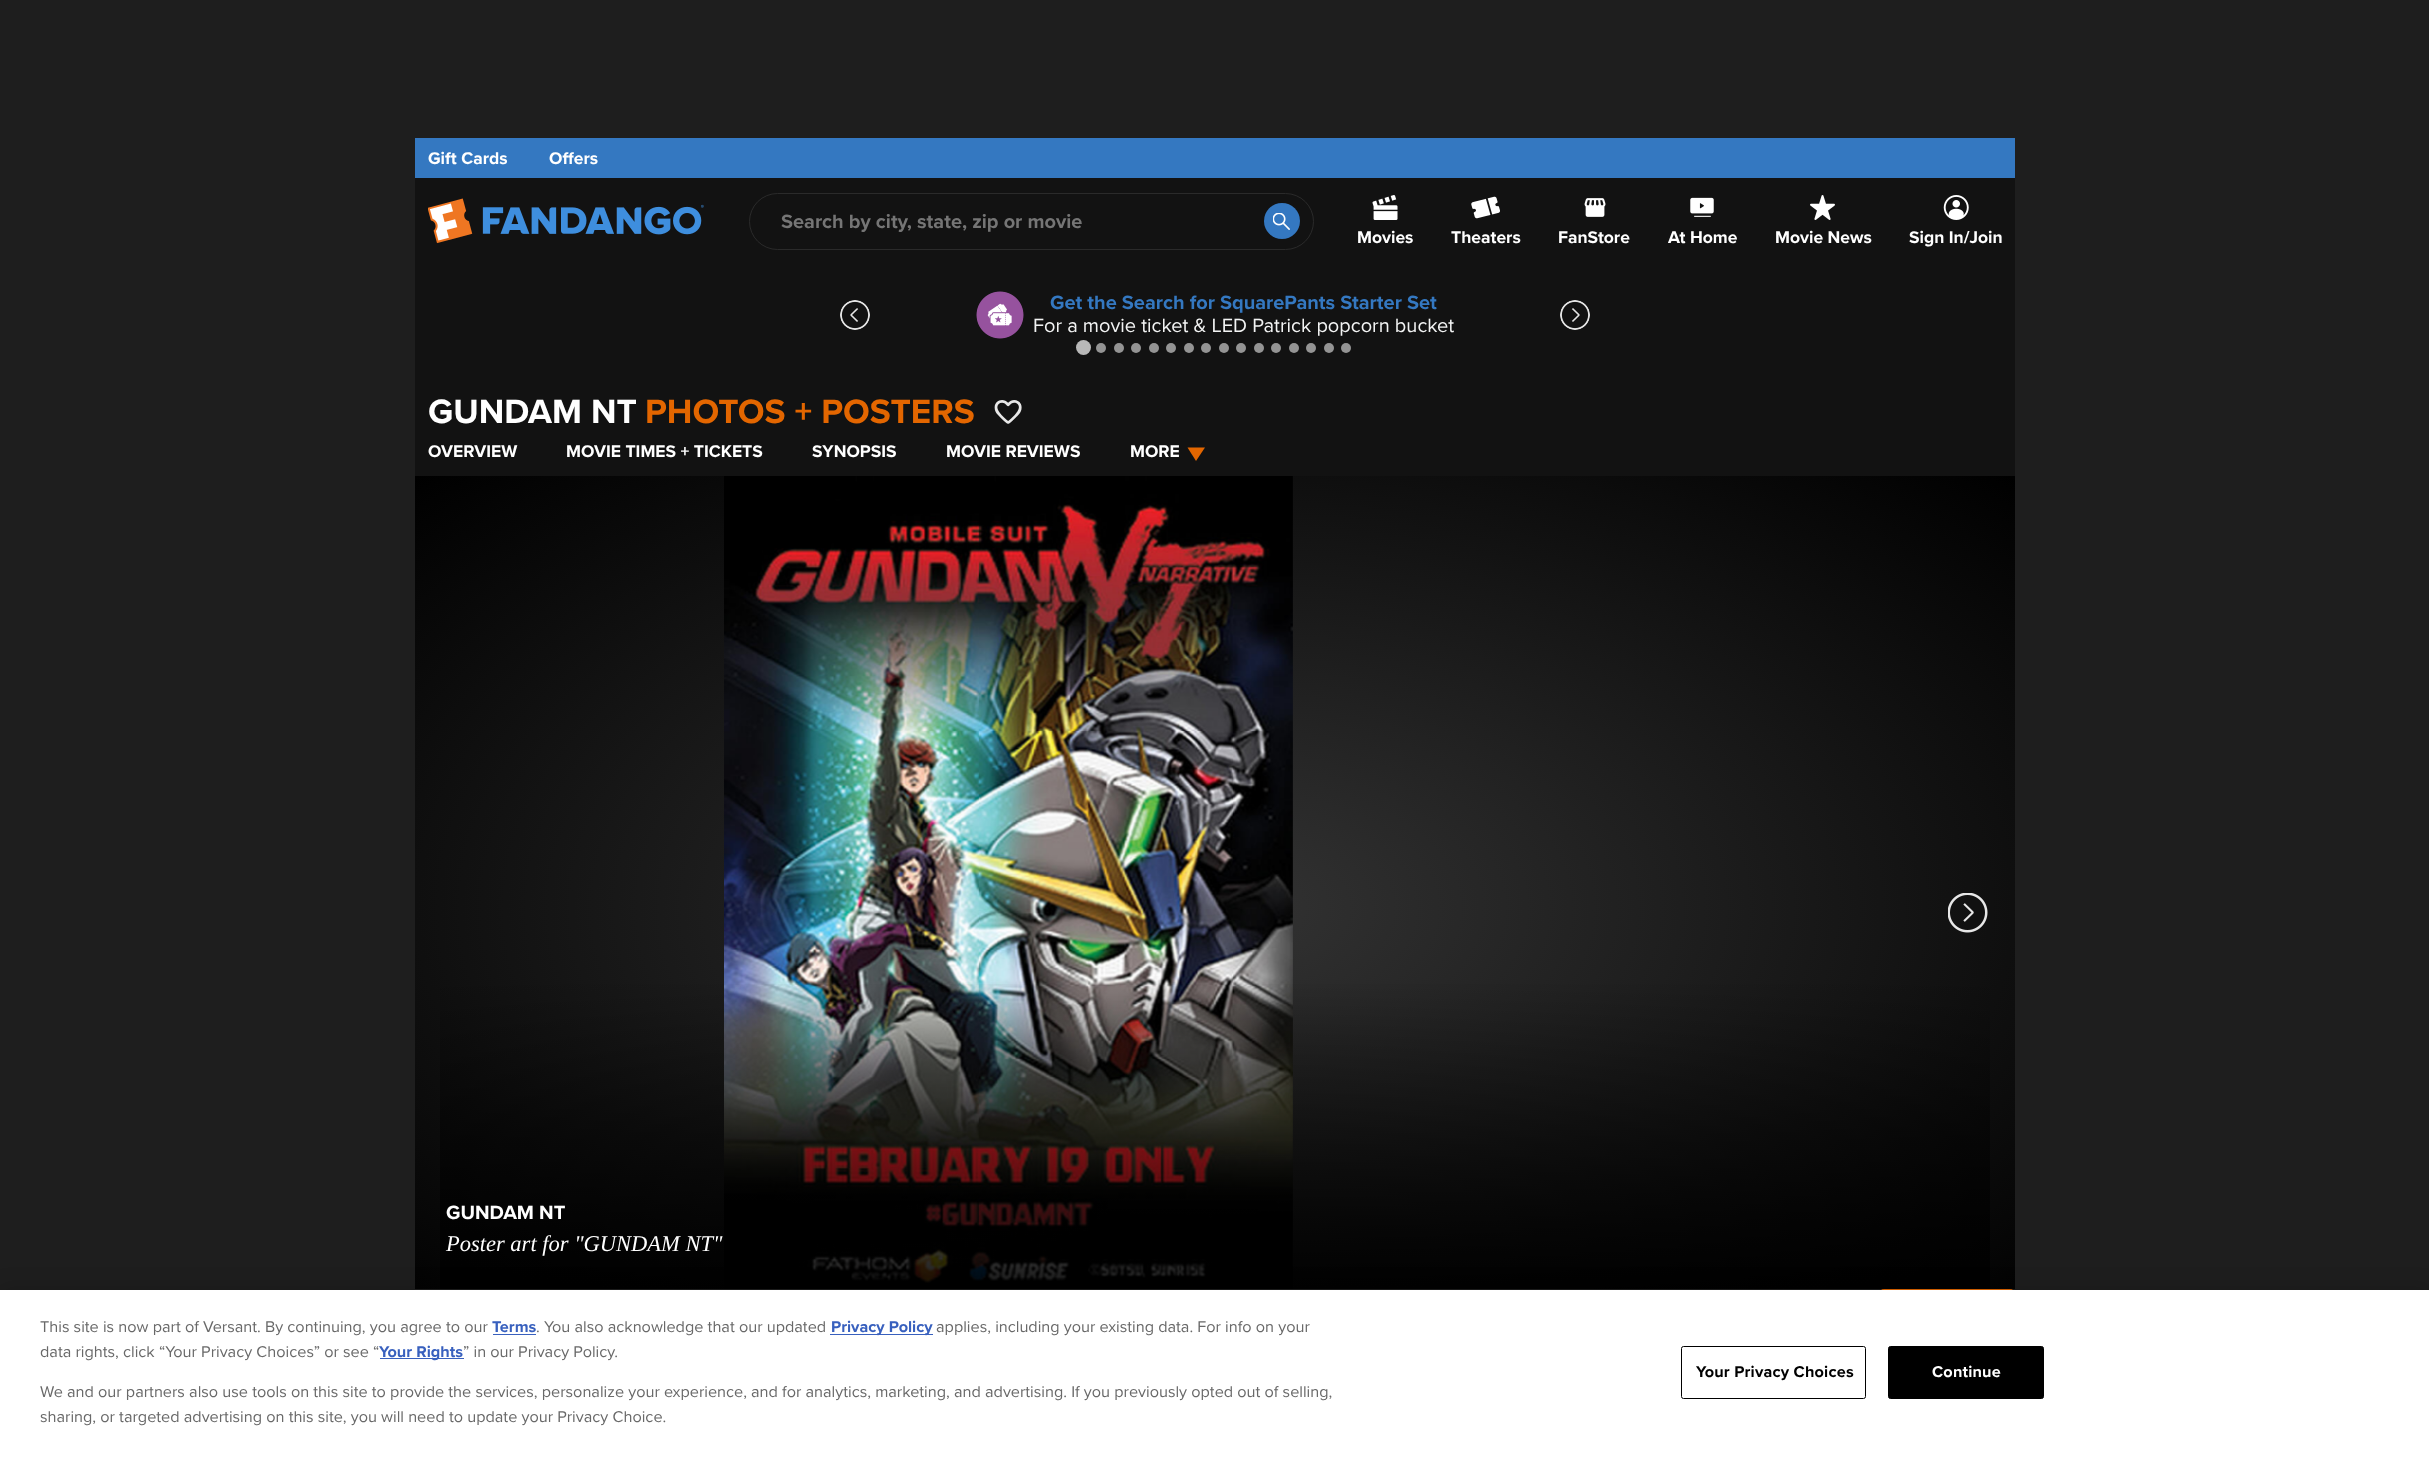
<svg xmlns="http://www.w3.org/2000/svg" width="2429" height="1457">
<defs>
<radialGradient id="g1" gradientUnits="userSpaceOnUse" cx="0" cy="0" r="1" gradientTransform="matrix(1131 0 0 610 1215 908)"><stop offset="0" stop-color="#333"/><stop offset="1" stop-color="#000"/></radialGradient>
<linearGradient id="g2" gradientUnits="userSpaceOnUse" x1="1215" y1="976" x2="1215" y2="1289"><stop offset="0" stop-color="#000" stop-opacity="0"/><stop offset="1" stop-color="#000" stop-opacity="0.9"/></linearGradient>
</defs>
<rect width="100%" height="100%" fill="#1e1e1e"/>
<rect x="415" y="138" width="1600" height="40" fill="#3478c1"/>
<text x="428" y="164" style="font-family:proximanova;font-size:17.5px;font-weight:bold;fill:#fff">Gift Cards</text>
<text x="549" y="164" style="font-family:proximanova;font-size:17.5px;font-weight:bold;fill:#fff">Offers</text>
<rect x="415" y="178" width="1600" height="187" fill="#121212"/>
<image x="428" y="198" width="276" height="46" href="media/1.png"/>
<rect x="749.5" y="193.5" width="564" height="56" rx="28" fill="none" stroke="#2a2a2a"/>
<text x="781" y="228" style="font-family:proximanova;font-size:20px;font-weight:bold;fill:#757575">Search by city, state, zip or movie</text>
<circle cx="1282" cy="221" r="18" fill="#3478c1"/>
<image x="1273" y="213" width="17" height="17" href="media/2.png"/>
<image x="1372" y="195" width="26" height="25" href="media/3.png"/>
<text x="1357" y="243" style="font-family:proximanova;font-size:17.5px;font-weight:bold;fill:#fff">Movies</text>
<image x="1471" y="196" width="29" height="23" href="media/4.png"/>
<text x="1451" y="243" style="font-family:proximanova;font-size:17.5px;font-weight:bold;fill:#fff">Theaters</text>
<image x="1584" y="198" width="22" height="19" href="media/5.png"/>
<text x="1558" y="243" style="font-family:proximanova;font-size:17.5px;font-weight:bold;fill:#fff">FanStore</text>
<image x="1690" y="197" width="24" height="20" href="media/6.png"/>
<text x="1668" y="243" style="font-family:proximanova;font-size:17.5px;font-weight:bold;fill:#fff">At Home</text>
<image x="1810" y="195" width="25" height="25" href="media/7.png"/>
<text x="1775" y="243" style="font-family:proximanova;font-size:17.5px;font-weight:bold;fill:#fff">Movie News</text>
<image x="1943" y="195" width="26" height="25" href="media/8.png"/>
<text x="1909" y="243" style="font-family:proximanova;font-size:17.5px;font-weight:bold;fill:#fff">Sign In/Join</text>
<image x="840" y="300" width="30" height="30" href="media/9.png"/>
<image x="976" y="291" width="48" height="48" href="media/10.png"/>
<text x="1050" y="309" style="font-family:proximanova;font-size:20px;font-weight:bold;fill:#3478c1">Get the Search for SquarePants Starter Set</text>
<text x="1033" y="332" style="font-family:Proxima Nova;font-size:20px;fill:#f2f3f3">For a movie ticket &amp; LED Patrick popcorn bucket</text>
<image x="1560" y="300" width="30" height="30" href="media/11.png"/>
<circle cx="1083.5" cy="347.5" r="7.5" fill="#b8b8b8"/>
<circle cx="1101" cy="348" r="5" fill="#949494"/>
<circle cx="1119" cy="348" r="5" fill="#949494"/>
<circle cx="1136" cy="348" r="5" fill="#949494"/>
<circle cx="1154" cy="348" r="5" fill="#949494"/>
<circle cx="1171" cy="348" r="5" fill="#949494"/>
<circle cx="1189" cy="348" r="5" fill="#949494"/>
<circle cx="1206" cy="348" r="5" fill="#949494"/>
<circle cx="1224" cy="348" r="5" fill="#949494"/>
<circle cx="1241" cy="348" r="5" fill="#949494"/>
<circle cx="1259" cy="348" r="5" fill="#949494"/>
<circle cx="1276" cy="348" r="5" fill="#949494"/>
<circle cx="1294" cy="348" r="5" fill="#949494"/>
<circle cx="1311" cy="348" r="5" fill="#949494"/>
<circle cx="1329" cy="348" r="5" fill="#949494"/>
<circle cx="1346" cy="348" r="5" fill="#949494"/>
<rect x="415" y="365" width="1600" height="111" fill="#121212"/>
<text x="428" y="423" style="font-family:proximanova;font-size:35px;font-weight:bold;fill:#fff">GUNDAM NT</text>
<text x="645" y="423" style="font-family:proximanova;font-size:35px;font-weight:bold;fill:#e36600">PHOTOS + POSTERS</text>
<image x="994" y="400" width="28" height="24" href="media/12.png"/>
<text x="428" y="457" style="font-family:proximanova;font-size:17.5px;font-weight:bold;fill:#fff">OVERVIEW</text>
<text x="566" y="457" style="font-family:proximanova;font-size:17.5px;font-weight:bold;fill:#fff">MOVIE TIMES + TICKETS</text>
<text x="812" y="457" style="font-family:proximanova;font-size:17.5px;font-weight:bold;fill:#fff">SYNOPSIS</text>
<text x="946" y="457" style="font-family:proximanova;font-size:17.5px;font-weight:bold;fill:#fff">MOVIE REVIEWS</text>
<text x="1130" y="457" style="font-family:proximanova;font-size:17.5px;font-weight:bold;fill:#fff">MORE</text>
<path d="M1187.5 447.5h17.5l-9 13.5z" fill="#e36600"/>
<rect x="415" y="476" width="1600" height="813" fill="url(#g1)"/>
<image x="1948" y="893" width="40" height="40" href="media/13.png"/>
<image x="724" y="476" width="569" height="813" href="media/14.png"/>
<rect x="440" y="984" width="1550" height="305" fill="url(#g2)"/>
<text x="446" y="1219" style="font-family:proximanova;font-size:20px;font-weight:bold;fill:#fff">GUNDAM NT</text>
<text x="446" y="1251" style="font-family:Liberation Serif;font-size:22.5px;font-style:italic;fill:#fff">Poster art for "GUNDAM NT"</text>
<rect x="1879" y="1289" width="136" height="50" rx="5" fill="#e36600"/>
<rect y="1290" width="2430" height="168" fill="#00000033" filter="blur(11px)"/>
<rect y="1290" width="2429" height="167" fill="#fff"/>
<text x="40" y="1332" style="font-family:Proxima Nova;font-size:16.25px;fill:#696969">This site is now part of Versant. By continuing, you agree to our</text>
<text x="492" y="1332" style="font-family:proximanova;font-size:16.25px;font-weight:bold;fill:#3860be">Terms</text>
<rect x="493" y="1334" width="43" height="1" fill="#3860be"/>
<text x="536" y="1332" style="font-family:Proxima Nova;font-size:16.25px;fill:#696969">. You also acknowledge that our updated</text>
<rect x="830" y="1334" width="103" height="1" fill="#3860be"/>
<text x="831" y="1332" style="font-family:proximanova;font-size:16.25px;font-weight:bold;fill:#3860be">Privacy Policy</text>
<text x="936" y="1332" style="font-family:Proxima Nova;font-size:16.25px;fill:#696969">applies, including your existing data. For info on your</text>
<text x="40" y="1357" style="font-family:Proxima Nova;font-size:16.25px;fill:#696969">data rights, click “Your Privacy Choices” or see “</text>
<rect x="380" y="1358" width="84" height="1" fill="#3860be"/>
<text x="379" y="1357" style="font-family:proximanova;font-size:16.25px;font-weight:bold;fill:#3860be">Your Rights</text>
<text x="463" y="1357" style="font-family:Proxima Nova;font-size:16.25px;fill:#696969">” in our Privacy Policy.</text>
<text x="40" y="1397" style="font-family:Proxima Nova;font-size:16.25px;fill:#696969">We and our partners also use tools on this site to provide the services, personalize your experience, and for analytics, marketing, and advertising. If you previously opted out of selling,</text>
<text x="40" y="1422" style="font-family:Proxima Nova;font-size:16.25px;fill:#696969">sharing, or targeted advertising on this site, you will need to update your Privacy Choice.</text>
<rect x="1681.5" y="1346.5" width="184" height="52" rx="2" fill="none" stroke="#000"/>
<text x="1696" y="1377" style="font-family:proximanova;font-size:16.25px;font-weight:bold;letter-spacing:0.2px;fill:#000">Your Privacy Choices</text>
<rect x="1888.5" y="1346.5" width="155" height="52" rx="2" fill="#000" stroke="#000"/>
<text x="1932" y="1377" style="font-family:proximanova;font-size:16.25px;font-weight:bold;letter-spacing:0.2px;fill:#fff">Continue</text>
</svg>
